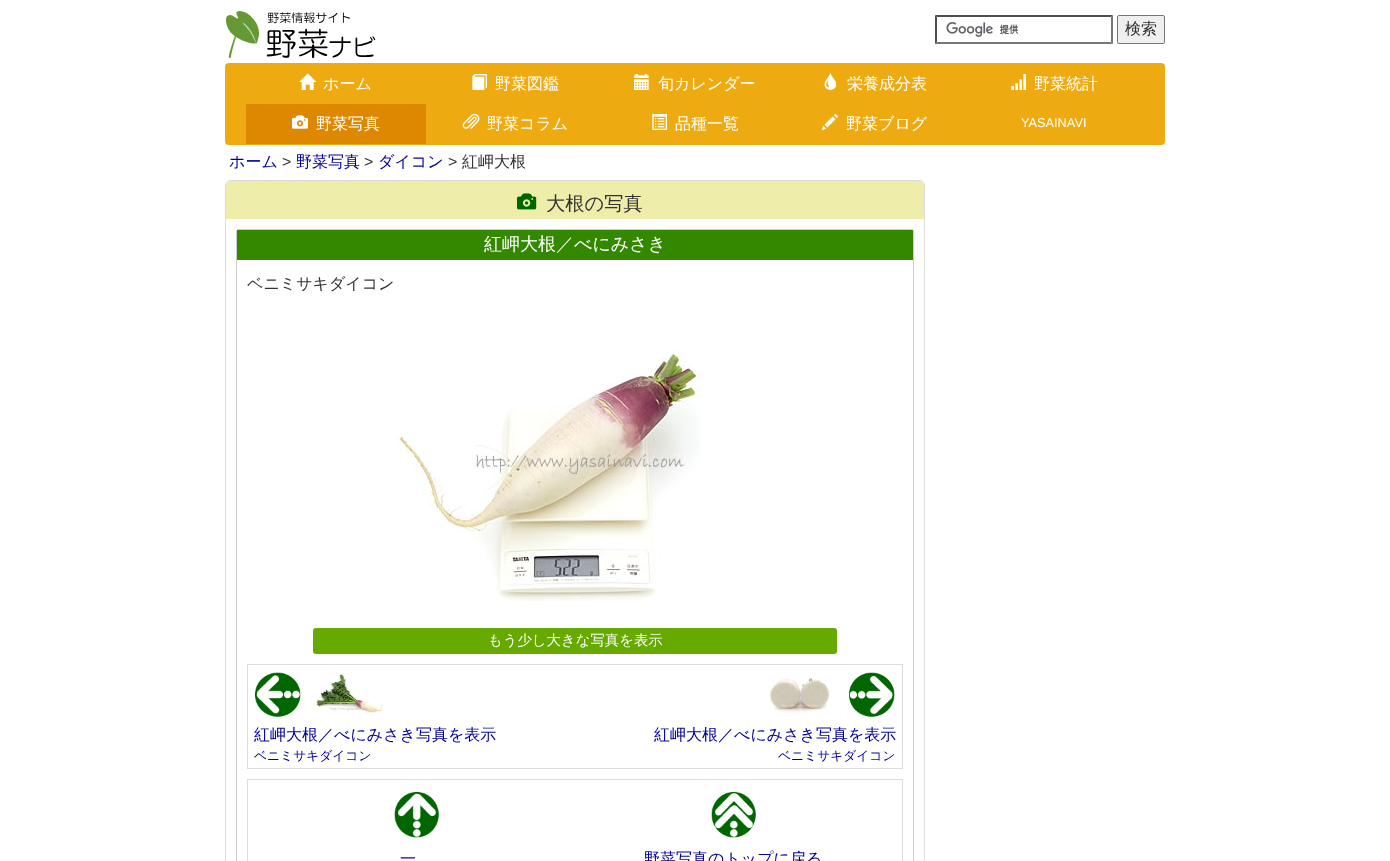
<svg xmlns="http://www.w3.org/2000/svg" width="1390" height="861">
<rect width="100%" height="100%" fill="#fff"/>
<image x="226" y="11" width="150" height="47" href="media/1.png"/>
<image x="946" y="22" width="73" height="15" href="media/2.png"/>
<path d="M935 15h178l-2 2h-174z" fill="#4f4f4f"/>
<path d="M1113 15v29l-2-2v-25z" fill="#767676"/>
<path d="M1113 44h-178l2-2h174z" fill="#767676"/>
<path d="M935 44v-29l2 2v25z" fill="#4f4f4f"/>
<rect x="1117.5" y="15.5" width="47" height="28" rx="1.5" fill="#efefef" stroke="#767676"/>
<text x="1125" y="34" style="font-family:WenQuanYi Zen Hei;font-size:16px;font-weight:500;fill:#333">検索</text>
<rect x="225" y="63" width="940" height="82" rx="4" fill="#ea1"/>
<image x="299" y="73" width="18" height="17" href="media/3.png"/>
<text x="323" y="89" style="font-family:WenQuanYi Zen Hei;font-size:16px;font-weight:500;fill:#fff">ホーム</text>
<image x="472" y="74" width="15" height="16" href="media/4.png"/>
<text x="495" y="89" style="font-family:WenQuanYi Zen Hei;font-size:16px;font-weight:500;fill:#fff">野菜図鑑</text>
<image x="634" y="74" width="15" height="16" href="media/5.png"/>
<text x="658" y="89" style="font-family:WenQuanYi Zen Hei;font-size:16px;font-weight:500;fill:#fff">旬カレンダー</text>
<image x="824" y="72" width="13" height="18" href="media/6.png"/>
<text x="847" y="89" style="font-family:WenQuanYi Zen Hei;font-size:16px;font-weight:500;fill:#fff">栄養成分表</text>
<image x="1011" y="74" width="15" height="16" href="media/7.png"/>
<text x="1034" y="89" style="font-family:WenQuanYi Zen Hei;font-size:16px;font-weight:500;fill:#fff">野菜統計</text>
<rect x="246" y="104" width="180" height="40" fill="#d80"/>
<image x="292" y="115" width="16" height="14" href="media/8.png"/>
<text x="316" y="129" style="font-family:WenQuanYi Zen Hei;font-size:16px;font-weight:500;fill:#fff">野菜写真</text>
<image x="462" y="113" width="18" height="16" href="media/9.png"/>
<text x="487" y="129" style="font-family:WenQuanYi Zen Hei;font-size:16px;font-weight:500;fill:#fff">野菜コラム</text>
<image x="652" y="114" width="15" height="16" href="media/10.png"/>
<text x="675" y="129" style="font-family:WenQuanYi Zen Hei;font-size:16px;font-weight:500;fill:#fff">品種一覧</text>
<image x="821" y="113" width="18" height="18" href="media/11.png"/>
<text x="846" y="129" style="font-family:WenQuanYi Zen Hei;font-size:16px;font-weight:500;fill:#fff">野菜ブログ</text>
<text x="1021" y="127" style="font-family:Liberation Sans;font-size:12.75px;fill:#fff">YASAINAVI</text>
<text x="229" y="167" style="font-family:WenQuanYi Zen Hei;font-size:16px;font-weight:500;fill:#009">ホーム</text>
<text x="282" y="167" style="font-family:Liberation Sans;font-size:16px;fill:#333">&gt;</text>
<text x="296" y="167" style="font-family:WenQuanYi Zen Hei;font-size:16px;font-weight:500;fill:#009">野菜写真</text>
<text x="364" y="167" style="font-family:Liberation Sans;font-size:16px;fill:#333">&gt;</text>
<text x="378" y="167" style="font-family:WenQuanYi Zen Hei;font-size:16px;font-weight:500;fill:#009">ダイコン</text>
<text x="448" y="167" style="font-family:Liberation Sans;font-size:16px;fill:#333">&gt;</text>
<text x="462" y="167" style="font-family:WenQuanYi Zen Hei;font-size:16px;font-weight:500;fill:#333">紅岬大根</text>
<rect x="225.5" y="180.5" width="699" height="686" rx="4.5" fill="none" stroke="#ddd"/>
<path d="M231 181h688c3 0 5 2 5 5v33h-698v-33c0-3 2-5 5-5z" fill="#eea"/>
<image x="517" y="193" width="20" height="17" href="media/12.png"/>
<text x="546" y="210" style="font-family:WenQuanYi Zen Hei;font-size:19.25px;font-weight:500;fill:#333">大根の写真</text>
<path d="M239 229.5h672c1.5 0 2.5 1 2.5 2.5v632.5h-677v-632.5c0-1.5 1-2.5 2.5-2.5z" fill="none" stroke="#ccc"/>
<rect x="237" y="230" width="676" height="30" fill="#380"/>
<text x="484" y="250" style="font-family:WenQuanYi Zen Hei;font-size:18px;font-weight:500;fill:#fff">紅岬大根／べにみさき</text>
<text x="247" y="289" style="font-family:WenQuanYi Zen Hei;font-size:16px;font-weight:500;fill:#333">ベニミサキダイコン</text>
<image x="397" y="349" width="304" height="252" href="media/13.png"/>
<rect x="313" y="628" width="524" height="26" rx="3" fill="#6a0"/>
<text x="488" y="645" style="font-family:WenQuanYi Zen Hei;font-size:14.4px;font-weight:500;fill:#fff">もう少し大きな写真を表示</text>
<rect x="247" y="664" width="656" height="1" fill="#ddd"/>
<rect x="902" y="664" width="1" height="105" fill="#ddd"/>
<rect x="247" y="664" width="1" height="61" fill="#ddd"/>
<image x="255" y="672" width="46" height="45" href="media/14.png"/>
<image x="316" y="673" width="68" height="40" href="media/15.png"/>
<image x="770" y="678" width="60" height="35" href="media/16.png"/>
<image x="849" y="672" width="46" height="45" href="media/17.png"/>
<rect x="247" y="768" width="656" height="1" fill="#ddd"/>
<rect x="247" y="725" width="1" height="44" fill="#ddd"/>
<text x="254" y="740" style="font-family:WenQuanYi Zen Hei;font-size:16px;font-weight:500;fill:#009">紅岬大根／べにみさき写真を表示</text>
<text x="254" y="760" style="font-family:WenQuanYi Zen Hei;font-size:12.75px;font-weight:500;fill:#009">ベニミサキダイコン</text>
<text x="654" y="740" style="font-family:WenQuanYi Zen Hei;font-size:16px;font-weight:500;fill:#009">紅岬大根／べにみさき写真を表示</text>
<text x="778" y="760" style="font-family:WenQuanYi Zen Hei;font-size:12.75px;font-weight:500;fill:#009">ベニミサキダイコン</text>
<rect x="247.5" y="779.5" width="655" height="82" fill="none" stroke="#ddd"/>
<image x="394" y="792" width="45" height="46" href="media/18.png"/>
<text x="400" y="864" style="font-family:WenQuanYi Zen Hei;font-size:16px;font-weight:500;fill:#009">一</text>
<image x="711" y="792" width="45" height="46" href="media/19.png"/>
<text x="644" y="864" style="font-family:WenQuanYi Zen Hei;font-size:16px;font-weight:500;fill:#009">野菜写真のトップに戻る</text>
</svg>
